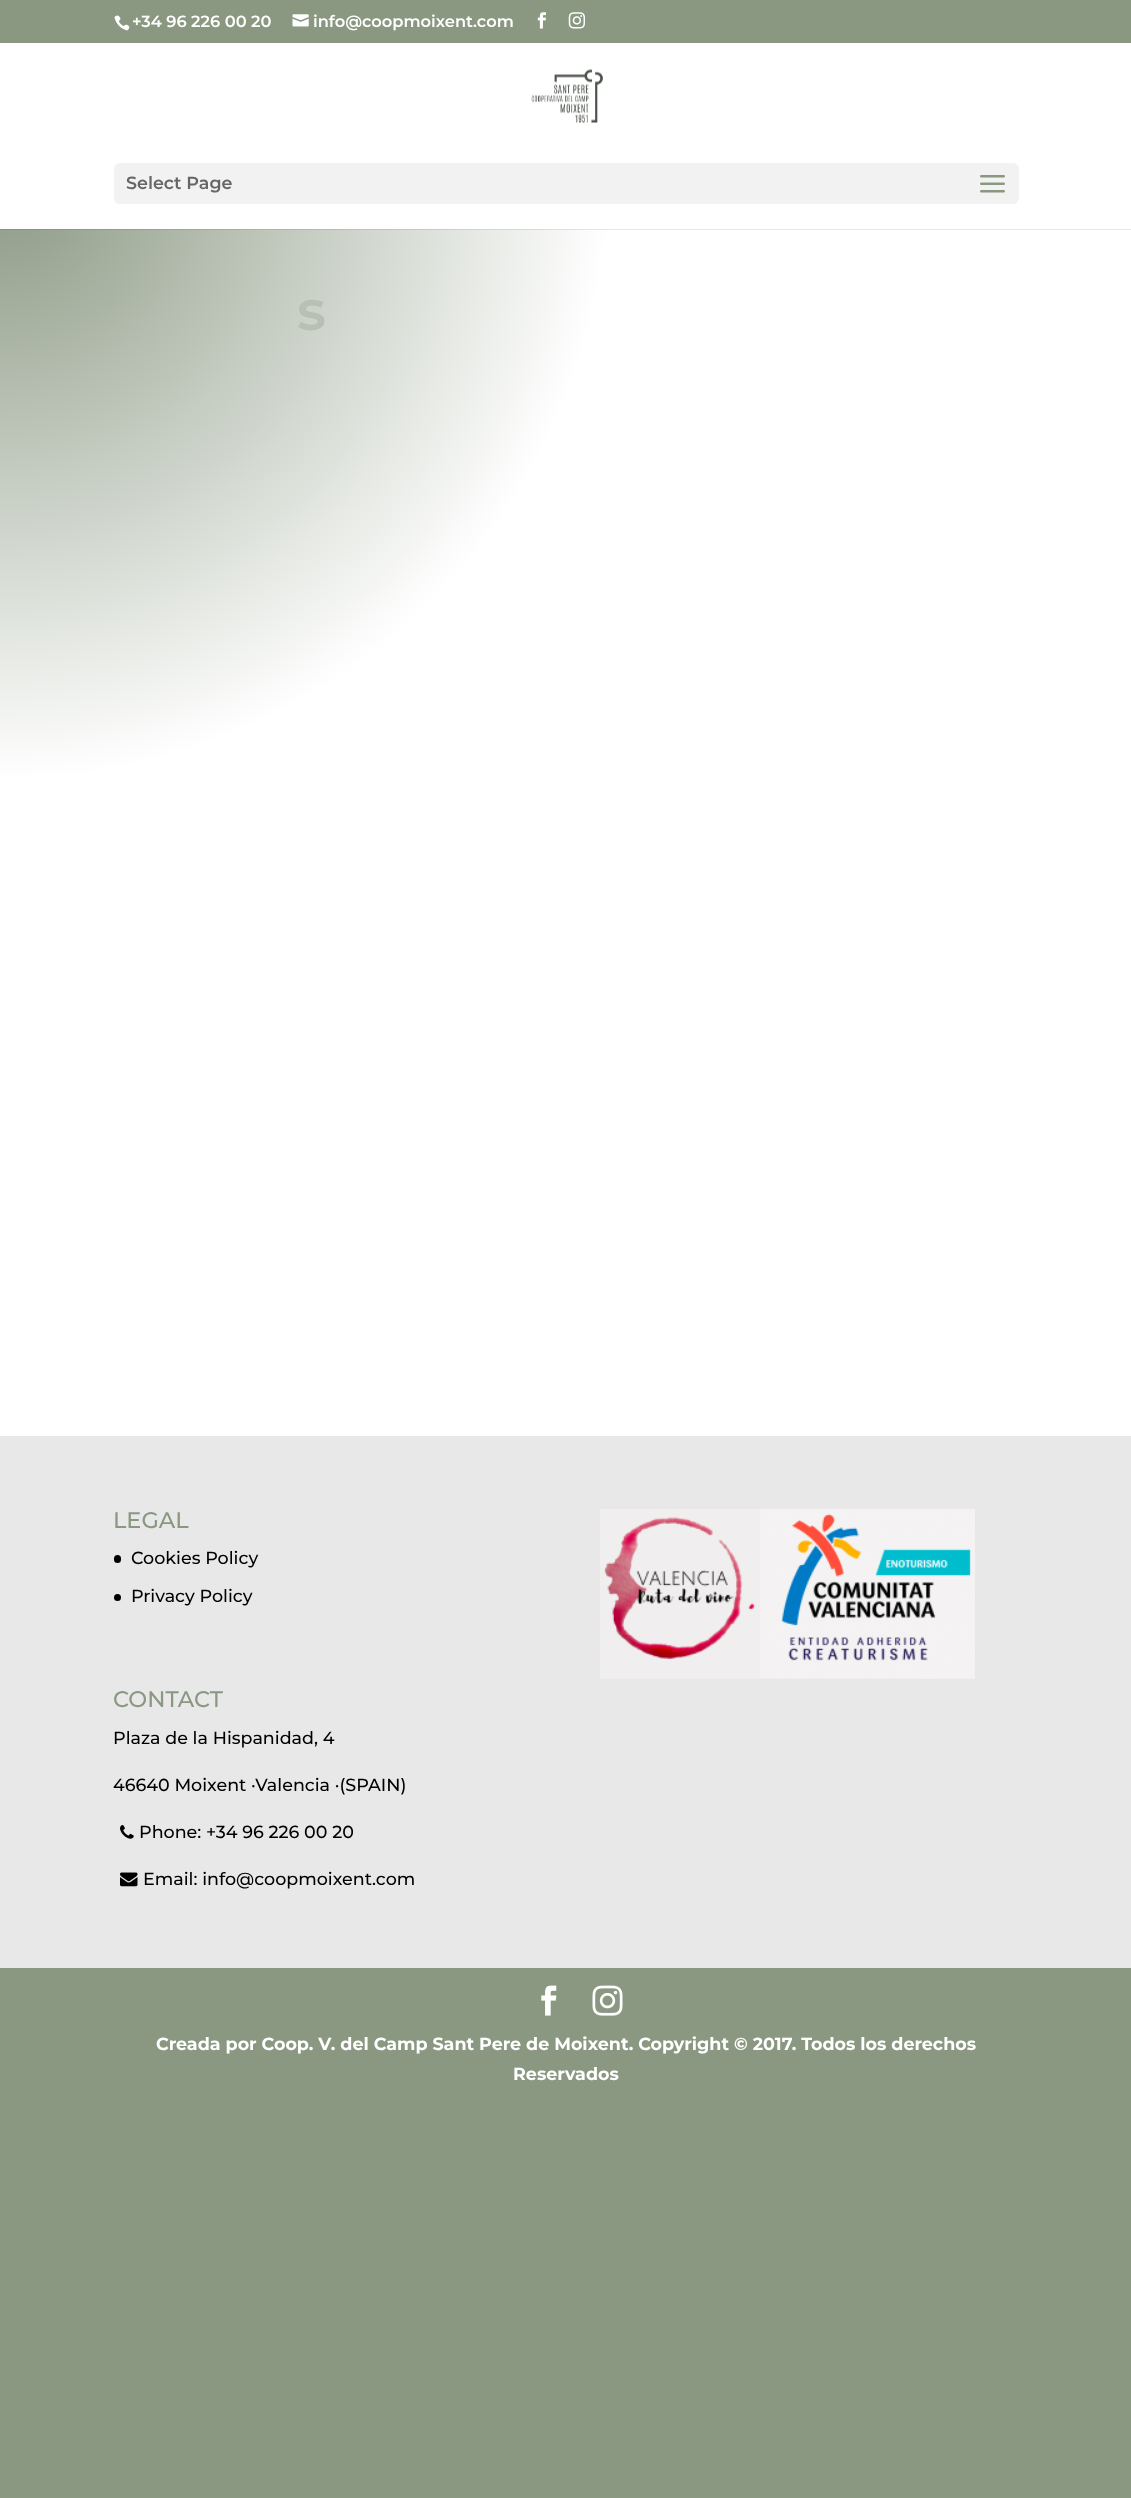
<svg xmlns="http://www.w3.org/2000/svg" width="1131" height="2498">
<defs>
<radialGradient id="g1" gradientUnits="userSpaceOnUse" cx="0" cy="170" r="1698"><stop offset="0" stop-color="#8a9882"/><stop offset="0.36" stop-color="#fff"/></radialGradient>
<radialGradient id="g2" gradientUnits="userSpaceOnUse" cx="0" cy="170" r="1698"><stop offset="0" stop-color="#7c8975"/><stop offset="0.36" stop-color="#e6e6e6"/></radialGradient>
</defs>
<rect width="100%" height="100%" fill="#8a9882"/>
<image x="114" y="15" width="16" height="16" href="media/1.png"/>
<text x="132" y="27" style="font-family:'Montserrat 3';font-size:16.25px;font-weight:100;fill:#fff">+34 96 226 00 20</text>
<image x="292" y="14" width="17" height="13" href="media/2.png"/>
<text x="313" y="27" style="font-family:'Montserrat 3';font-size:16.25px;font-weight:100;fill:#fff">info@coopmoixent.com</text>
<image x="537" y="12" width="9" height="17" href="media/3.png"/>
<image x="568" y="12" width="17" height="17" href="media/4.png"/>
<rect y="43" width="1131" height="186" fill="#fff"/>
<image x="531" y="69" width="72" height="54" href="media/5.png"/>
<rect x="114" y="163" width="905" height="41" rx="6" fill="#f2f2f2"/>
<text x="126" y="189" style="font-family:'Montserrat 3';font-size:17.5px;font-weight:100;fill:#666">Select Page</text>
<image x="980" y="175" width="25" height="18" href="media/6.png"/>
<rect y="230" width="1131" height="1206" fill="url(#g1)"/>
<rect y="229" width="1131" height="1" fill="url(#g2)"/>
<text x="297" y="330" style="font-family:'Montserrat 3';font-size:56px;font-weight:100;fill:#b7c0b2">s</text>
<rect y="1436" width="1131" height="532" fill="#e8e8e8"/>
<text x="113" y="1528" style="font-family:Montserrat;font-size:22.5px;font-weight:100;fill:#8a9882">LEGAL</text>
<rect x="114" y="1555" width="7" height="8" rx="3.5" fill="#000"/>
<text x="131" y="1564" style="font-family:Montserrat;font-size:17.5px;font-weight:100;fill:#000">Cookies Policy</text>
<circle cx="117.5" cy="1597.5" r="3.5" fill="#000"/>
<text x="131" y="1602" style="font-family:Montserrat;font-size:17.5px;font-weight:100;fill:#000">Privacy Policy</text>
<image x="600" y="1509" width="375" height="170" href="media/7.png"/>
<text x="113" y="1707" style="font-family:Montserrat;font-size:22.5px;font-weight:100;fill:#8a9882">CONTACT</text>
<text x="113" y="1744" style="font-family:Montserrat;font-size:17.5px;font-weight:100;fill:#000">Plaza de la Hispanidad, 4</text>
<text x="113" y="1791" style="font-family:Montserrat;font-size:17.5px;font-weight:100;fill:#000">46640 Moixent ·Valencia ·(SPAIN)</text>
<image x="120" y="1825" width="14" height="14" href="media/8.png"/>
<text x="139" y="1838" style="font-family:Montserrat;font-size:17.5px;font-weight:100;fill:#000">Phone: +34 96 226 00 20</text>
<image x="120" y="1872" width="18" height="15" href="media/9.png"/>
<text x="143" y="1885" style="font-family:Montserrat;font-size:17.5px;font-weight:100;fill:#000">Email: info@coopmoixent.com</text>
<image x="541" y="1985" width="16" height="31" href="media/10.png"/>
<image x="592" y="1985" width="31" height="31" href="media/11.png"/>
<text x="156" y="2050" style="font-family:'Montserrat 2';font-size:17.5px;font-weight:100;fill:#fff">Creada por Coop. V. del Camp Sant Pere de Moixent. Copyright © 2017. Todos los derechos</text>
<text x="513" y="2080" style="font-family:'Montserrat 2';font-size:17.5px;font-weight:100;fill:#fff">Reservados</text>
</svg>
